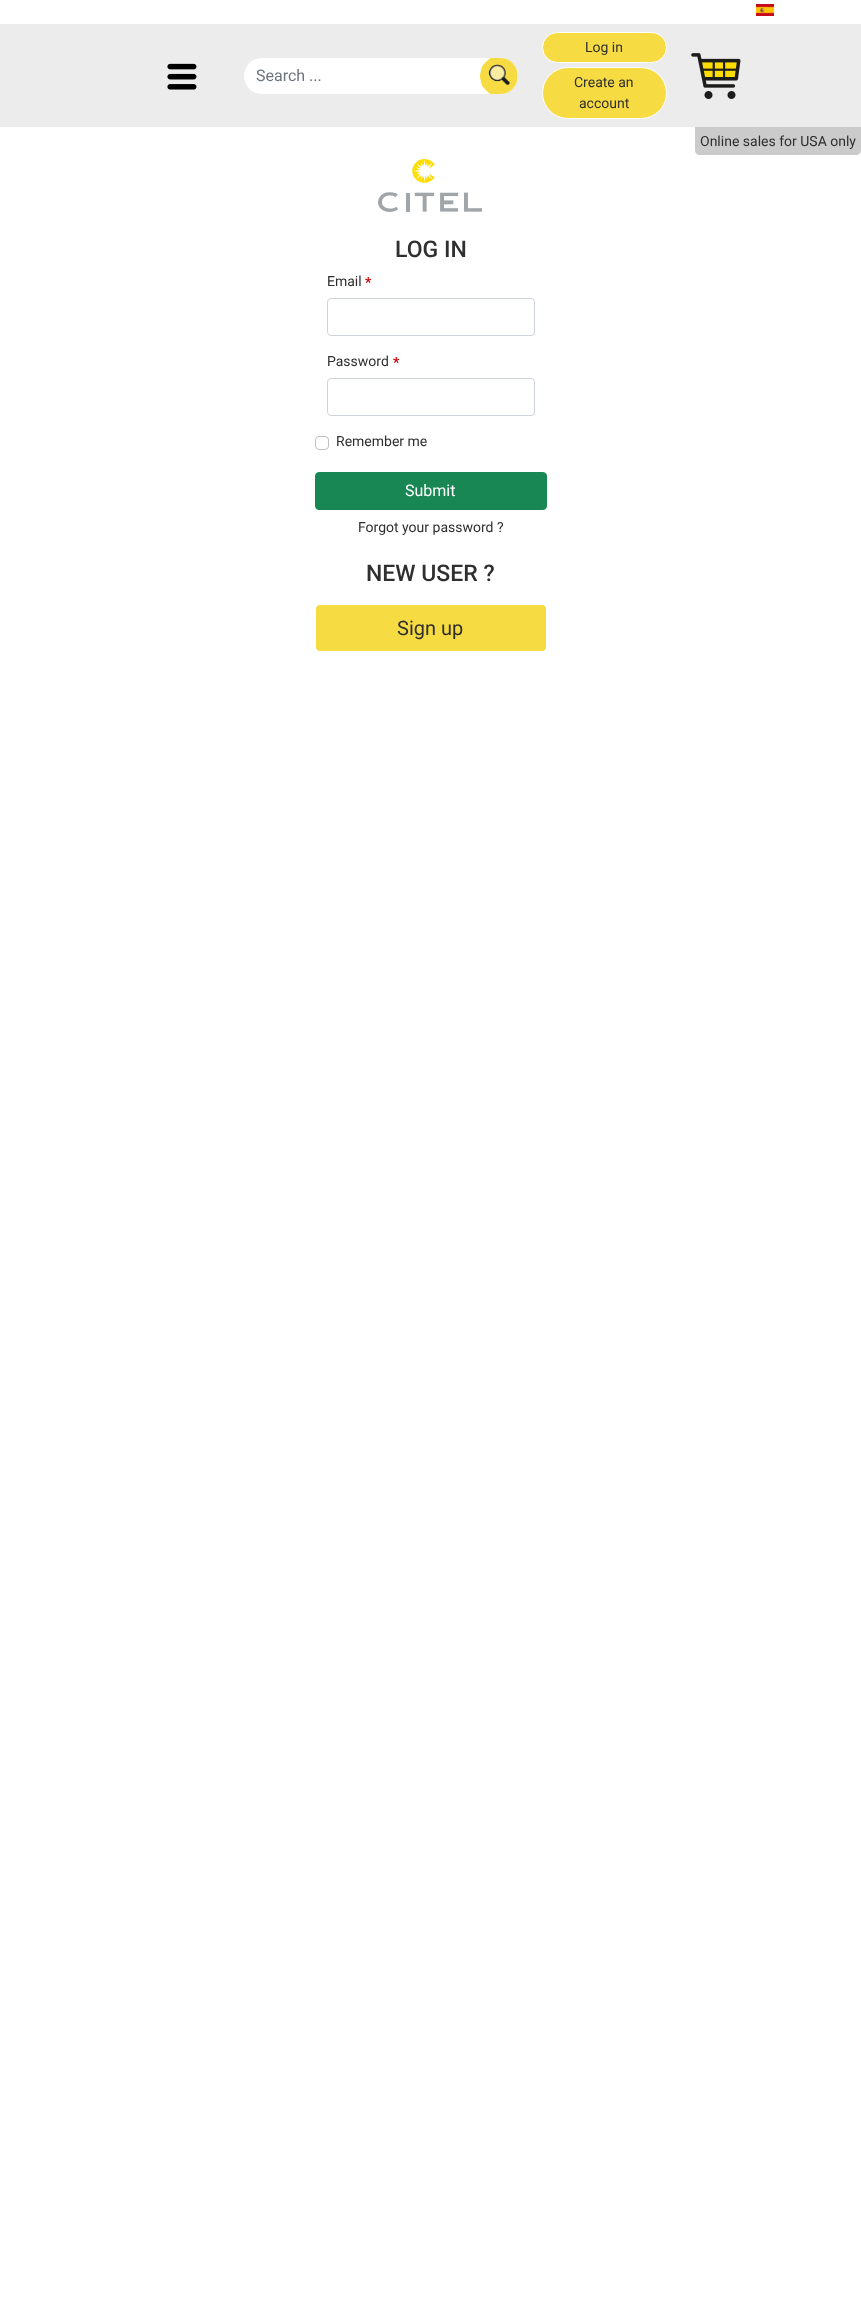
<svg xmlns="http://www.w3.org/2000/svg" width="861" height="2303">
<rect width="100%" height="100%" fill="#fff"/>
<image x="756" y="4" width="18" height="12" href="media/1.png"/>
<rect y="24" width="861" height="103" fill="#ececec"/>
<image x="167" y="63" width="30" height="27" href="media/2.png"/>
<rect x="244" y="58" width="274" height="36" rx="18" fill="#fff"/>
<image x="480" y="58" width="38" height="36" href="media/3.png"/>
<text x="256" y="81" style="font-family:Roboto;font-size:16px;fill:#6c757d">Search ...</text>
<rect x="542.5" y="32.5" width="124" height="30" rx="15" fill="#f7db42" stroke="#fff"/>
<text x="585" y="52" style="font-family:Roboto;font-size:14px;fill:#2f2f2f">Log in</text>
<rect x="542.5" y="67.5" width="124" height="51" rx="25.5" fill="#f7db42" stroke="#fff"/>
<text x="574" y="87" style="font-family:Roboto;font-size:14px;fill:#2f2f2f">Create an</text>
<text x="579" y="108" style="font-family:Roboto;font-size:14px;fill:#2f2f2f">account</text>
<image x="691" y="53" width="50" height="46" href="media/4.png"/>
<path d="M695 127h166v23c0 3-2 5-5 5h-156c-3 0-5-2-5-5z" fill="#cbcbcb"/>
<text x="700" y="146" style="font-family:Roboto;font-size:14px;fill:#2f2f2f">Online sales for USA only</text>
<image x="378" y="159" width="104" height="53" href="media/5.png"/>
<text x="395" y="257" style="font-family:Roboto;font-size:23px;font-weight:500;fill:#2f2f2f">LOG IN</text>
<text x="327" y="286" style="font-family:Roboto;font-size:14px;fill:#2f2f2f">Email</text>
<text x="365" y="287" style="font-family:Roboto;font-size:14px;font-weight:bold;fill:#c00">*</text>
<rect x="327.5" y="298.5" width="207" height="37" rx="3.5" fill="none" stroke="#ced4da"/>
<text x="327" y="366" style="font-family:Roboto;font-size:14px;fill:#2f2f2f">Password</text>
<text x="393" y="367" style="font-family:Roboto;font-size:14px;font-weight:bold;fill:#c00">*</text>
<rect x="327.5" y="378.5" width="207" height="37" rx="3.5" fill="none" stroke="#ced4da"/>
<rect x="315.5" y="436.5" width="13" height="13" rx="3.5" fill="none" stroke="#bfbfbf"/>
<text x="336" y="446" style="font-family:Roboto;font-size:14px;fill:#2f2f2f">Remember me</text>
<rect x="315.5" y="472.5" width="231" height="37" rx="3.5" fill="#198754" stroke="#198754"/>
<text x="405" y="496" style="font-family:Roboto;font-size:16px;fill:#fff">Submit</text>
<text x="358" y="532" style="font-family:Roboto;font-size:14px;fill:#2f2f2f">Forgot your password ?</text>
<text x="366" y="581" style="font-family:Roboto;font-size:23px;font-weight:500;fill:#2f2f2f">NEW USER ?</text>
<rect x="315.5" y="604.5" width="231" height="47" rx="4.5" fill="#f7db42" stroke="#fff"/>
<text x="397" y="635" style="font-family:Roboto;font-size:20px;fill:#2f2f2f">Sign up</text>
</svg>
